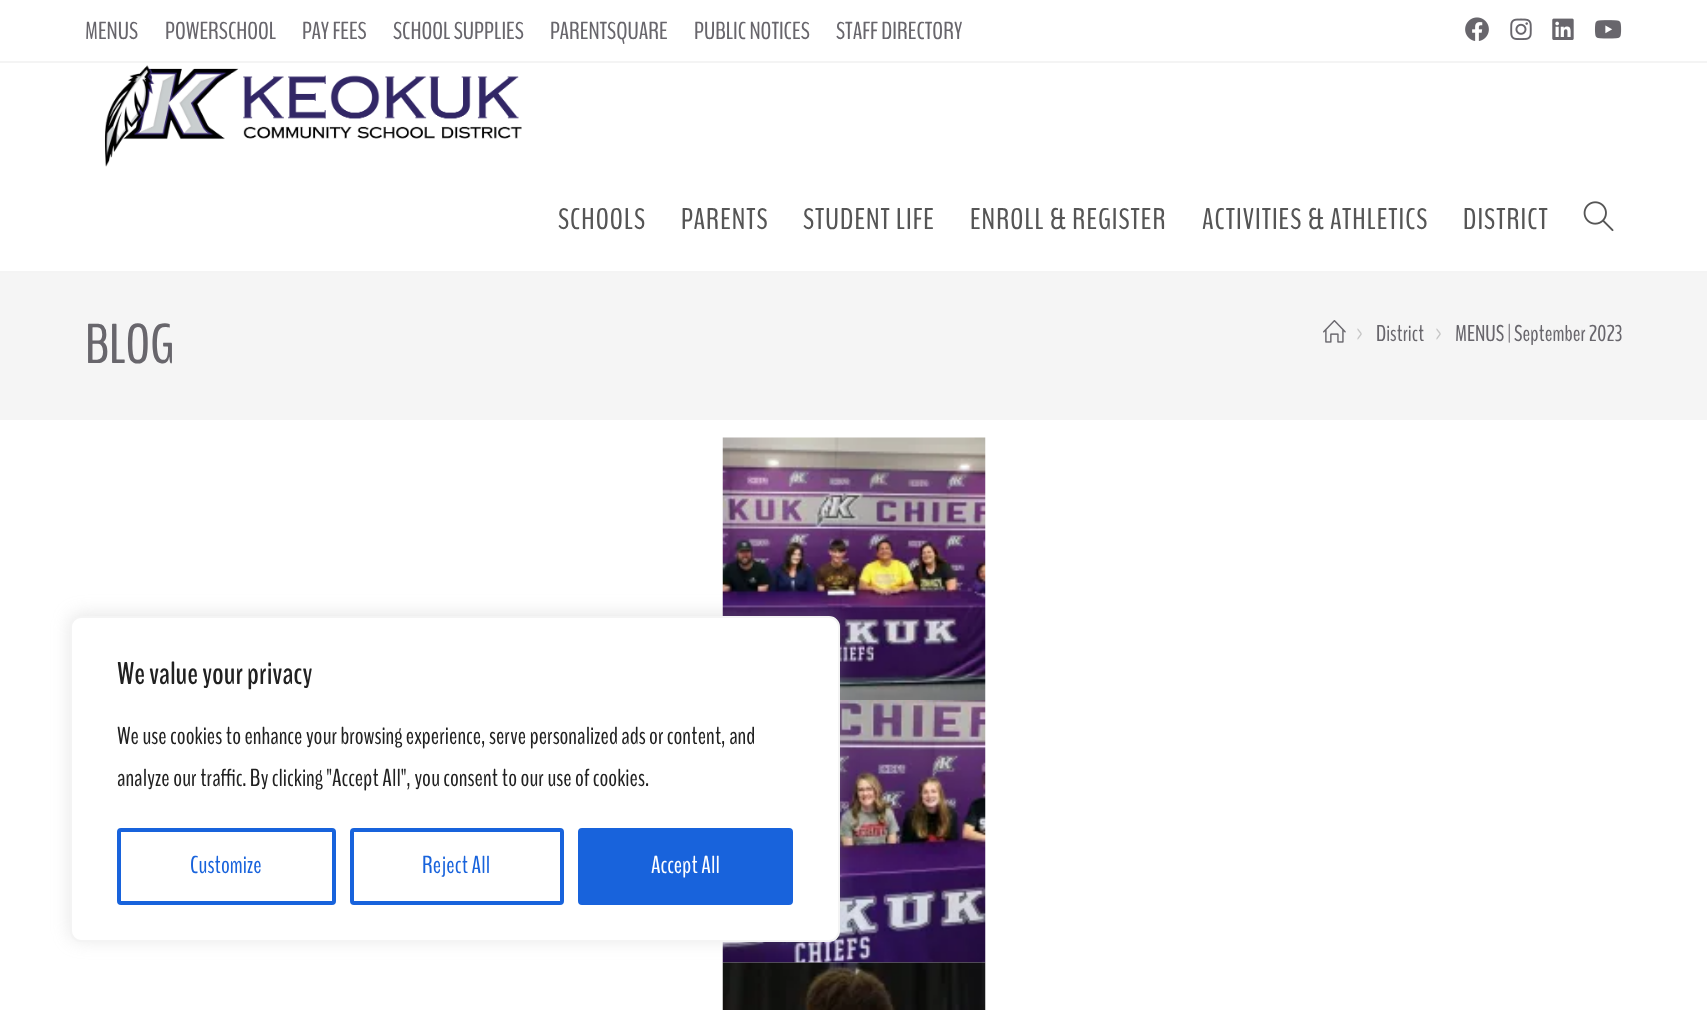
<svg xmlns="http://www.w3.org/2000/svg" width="1707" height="1010">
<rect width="100%" height="100%" fill="#fff"/>
<rect y="61" width="1707" height="2" fill="#f4f4f4"/>
<text x="85" y="39" style="font-family:BenchNine;font-size:24.5px;fill:#68666c">MENUS</text>
<text x="165" y="39" style="font-family:BenchNine;font-size:24.5px;fill:#68666c">POWERSCHOOL</text>
<text x="302" y="39" style="font-family:BenchNine;font-size:24.5px;fill:#68666c">PAY FEES</text>
<text x="393" y="39" style="font-family:BenchNine;font-size:24.5px;fill:#68666c">SCHOOL SUPPLIES</text>
<text x="550" y="39" style="font-family:BenchNine;font-size:24.5px;fill:#68666c">PARENTSQUARE</text>
<text x="694" y="39" style="font-family:BenchNine;font-size:24.5px;fill:#68666c">PUBLIC NOTICES</text>
<text x="836" y="39" style="font-family:BenchNine;font-size:24.5px;fill:#68666c">STAFF DIRECTORY</text>
<image x="1465" y="17" width="24" height="24" href="media/1.png"/>
<image x="1510" y="18" width="22" height="22" href="media/2.png"/>
<image x="1552" y="18" width="22" height="22" href="media/3.png"/>
<image x="1594" y="20" width="28" height="19" href="media/4.png"/>
<rect y="271" width="1707" height="2" fill="#f4f4f4"/>
<image x="104" y="65" width="418" height="102" href="media/5.png"/>
<text x="558" y="229" style="font-family:BenchNine;font-size:29.75px;letter-spacing:1.05px;fill:#555">SCHOOLS</text>
<text x="681" y="229" style="font-family:BenchNine;font-size:29.75px;letter-spacing:1.05px;fill:#555">PARENTS</text>
<text x="803" y="229" style="font-family:BenchNine;font-size:29.75px;letter-spacing:1.05px;fill:#555">STUDENT LIFE</text>
<text x="970" y="229" style="font-family:BenchNine;font-size:29.75px;letter-spacing:1.05px;fill:#555">ENROLL &amp; REGISTER</text>
<text x="1202" y="229" style="font-family:BenchNine;font-size:29.75px;letter-spacing:1.05px;fill:#555">ACTIVITIES &amp; ATHLETICS</text>
<text x="1463" y="229" style="font-family:BenchNine;font-size:29.75px;letter-spacing:1.05px;fill:#555">DISTRICT</text>
<image x="1583" y="201" width="31" height="31" href="media/6.png"/>
<rect y="273" width="1707" height="147" fill="#f5f5f5"/>
<text x="85" y="363" style="font-family:BenchNine;font-size:56px;fill:#68666c">BLOG</text>
<image x="1323" y="320" width="23" height="23" href="media/7.png"/>
<text x="1356" y="341" style="font-family:BenchNine;font-size:22.75px;fill:#c6c6c6">&gt;</text>
<text x="1376" y="341" style="font-family:BenchNine;font-size:22.75px;fill:#68666c">District</text>
<text x="1435" y="341" style="font-family:BenchNine;font-size:22.75px;fill:#c6c6c6">&gt;</text>
<text x="1455" y="341" style="font-family:BenchNine;font-size:22.75px;fill:#68666c">MENUS | September 2023</text>
<image x="722" y="437" width="264" height="263" href="media/8.png"/>
<image x="722" y="700" width="264" height="263" href="media/9.png"/>
<image x="722" y="962" width="264" height="48" href="media/10.png"/>
<rect x="70" y="614" width="770" height="326" rx="11" fill="#acabab4d" filter="blur(9px)"/>
<rect x="71" y="617" width="768" height="324" rx="10" fill="#fff" stroke="#f4f4f4" stroke-width="2"/>
<text x="117" y="684" style="font-family:BenchNine;font-size:31.5px;font-weight:bold;fill:#212121">We value your privacy</text>
<text x="117" y="744" style="font-family:BenchNine;font-size:24.5px;fill:#212121">We use cookies to enhance your browsing experience, serve personalized ads or content, and</text>
<text x="117" y="786" style="font-family:BenchNine;font-size:24.5px;fill:#212121">analyze our traffic. By clicking "Accept All", you consent to our use of cookies.</text>
<rect x="119" y="830" width="215" height="73" rx="2" fill="none" stroke="#1863dc" stroke-width="4"/>
<text x="190" y="873" style="font-family:BenchNine;font-size:24.5px;fill:#1863dc">Customize</text>
<rect x="352" y="830" width="210" height="73" rx="2" fill="none" stroke="#1863dc" stroke-width="4"/>
<text x="422" y="873" style="font-family:BenchNine;font-size:24.5px;fill:#1863dc">Reject All</text>
<rect x="580" y="830" width="211" height="73" rx="2" fill="#1863dc" stroke="#1863dc" stroke-width="4"/>
<text x="651" y="873" style="font-family:BenchNine;font-size:24.5px;fill:#fff">Accept All</text>
</svg>
